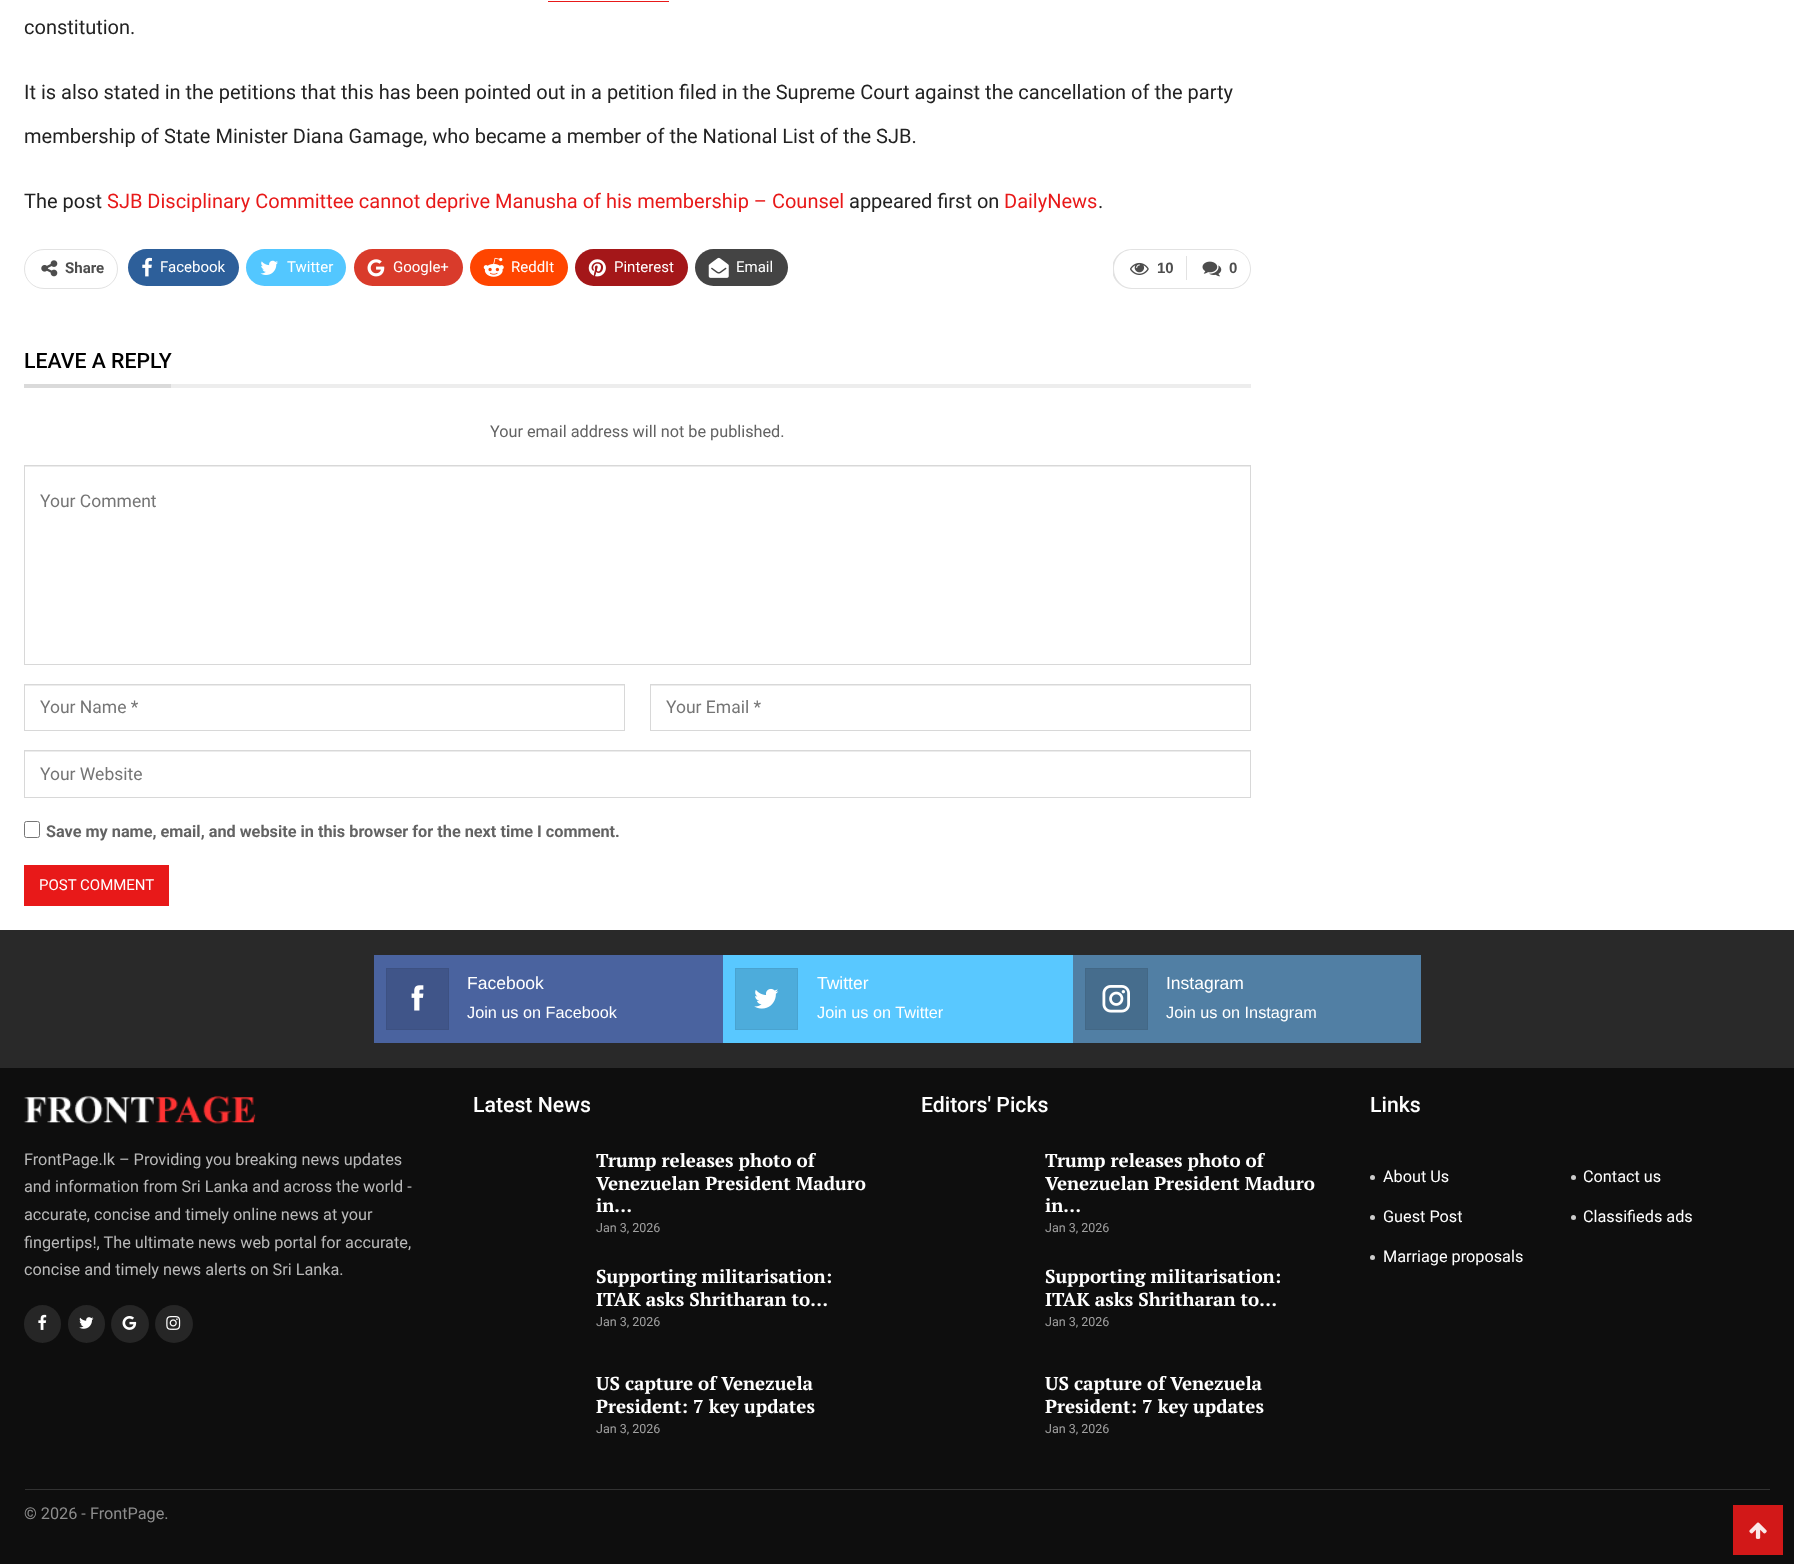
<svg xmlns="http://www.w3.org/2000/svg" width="1794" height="1564">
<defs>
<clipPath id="clip1"><rect x="1113" y="249" width="138" height="40"/></clipPath>
</defs>
<rect width="100%" height="100%" fill="#fff"/>
<rect x="548" y="1" width="121" height="1" fill="#e81919"/>
<text x="24" y="34" style="font-family:Roboto;font-size:20px;fill:#222">constitution.</text>
<text x="24" y="99" style="font-family:Roboto;font-size:20px;fill:#222">It is also stated in the petitions that this has been pointed out in a petition filed in the Supreme Court against the cancellation of the party</text>
<text x="24" y="143" style="font-family:Roboto;font-size:20px;fill:#222">membership of State Minister Diana Gamage, who became a member of the National List of the SJB.</text>
<text x="24" y="208" style="font-family:Roboto;font-size:20px;fill:#222">The post</text>
<text x="107" y="208" style="font-family:Roboto;font-size:20px;fill:#e81919">SJB Disciplinary Committee cannot deprive Manusha of his membership – Counsel</text>
<text x="849" y="208" style="font-family:Roboto;font-size:20px;fill:#222">appeared first on</text>
<text x="1004" y="208" style="font-family:Roboto;font-size:20px;fill:#e81919">DailyNews</text>
<text x="1098" y="208" style="font-family:Roboto;font-size:20px;fill:#222">.</text>
<rect x="24.5" y="249.5" width="93" height="39" rx="19.5" fill="none" stroke="#e2e2e2"/>
<image x="41" y="260" width="17" height="17" href="media/1.png"/>
<text x="65" y="273" style="font-family:Roboto;font-size:15px;font-weight:bold;fill:#4d4d4d">Share</text>
<rect x="128" y="249" width="111" height="37" rx="18.5" fill="#2d5f9a"/>
<image x="142" y="257" width="10" height="20" href="media/2.png"/>
<text x="160" y="272" style="font-family:Roboto;font-size:15px;fill:#fff">Facebook</text>
<rect x="246" y="249" width="100" height="37" rx="18.5" fill="#53c7ff"/>
<image x="260" y="260" width="18" height="15" href="media/3.png"/>
<text x="287" y="272" style="font-family:Roboto;font-size:15px;fill:#fff">Twitter</text>
<rect x="354" y="249" width="109" height="37" rx="18.5" fill="#d93b2b"/>
<image x="367" y="259" width="18" height="18" href="media/4.png"/>
<text x="393" y="272" style="font-family:Roboto;font-size:15px;fill:#fff">Google+</text>
<rect x="470" y="249" width="98" height="37" rx="18.5" fill="#ff4500"/>
<image x="483" y="257" width="21" height="20" href="media/5.png"/>
<text x="511" y="272" style="font-family:Roboto;font-size:15px;fill:#fff">ReddIt</text>
<rect x="575" y="249" width="113" height="37" rx="18.5" fill="#a41719"/>
<image x="588" y="259" width="18" height="18" href="media/6.png"/>
<text x="614" y="272" style="font-family:Roboto;font-size:15px;fill:#fff">Pinterest</text>
<rect x="695" y="249" width="93" height="37" rx="18.5" fill="#444"/>
<image x="708" y="257" width="21" height="21" href="media/7.png"/>
<text x="736" y="272" style="font-family:Roboto;font-size:15px;fill:#fff">Email</text>
<g clip-path="url(#clip1)">
<path d="M1132 249h54v40h-54c-11 0-20-9-20-20c0-11 9-20 20-20zm0 1h54v38h-54c-10 0-18-9-18-19c0-11 8-19 18-19z" fill="#e2e2e2" fill-rule="evenodd"/>
</g>
<image x="1130" y="262" width="19" height="13" href="media/8.png"/>
<text x="1157" y="273" style="font-family:Liberation Sans;font-size:15px;font-weight:bold;fill:#4d4d4d">10</text>
<path d="M1186 249h45c11 0 20 9 20 20c0 11-9 20-20 20h-45zm0 1h45c11 0 19 8 19 19c0 10-8 19-19 19h-45z" fill="#e2e2e2" fill-rule="evenodd"/>
<rect x="1186" y="256" width="1" height="24" fill="#e2e2e2"/>
<image x="1202" y="261" width="20" height="16" href="media/9.png"/>
<text x="1229" y="273" style="font-family:Liberation Sans;font-size:15px;font-weight:bold;fill:#4d4d4d">0</text>
<text x="24" y="368" style="font-family:Roboto;font-size:21.25px;font-weight:500;fill:#000">LEAVE A REPLY</text>
<rect x="24" y="384" width="147" height="4" fill="#dadada"/>
<rect x="171" y="384" width="1080" height="4" fill="#ededed"/>
<text x="490" y="437" style="font-family:Roboto;font-size:16.25px;fill:#636363">Your email address will not be published.</text>
<rect x="25" y="466" width="1225" height="1" fill="#ececec"/>
<rect x="24.5" y="465.5" width="1226" height="199" fill="none" stroke="#d8d8d8"/>
<text x="40" y="507" style="font-family:Roboto;font-size:17.5px;fill:#757575">Your Comment</text>
<rect x="25" y="685" width="599" height="1" fill="#ececec"/>
<rect x="24.5" y="684.5" width="600" height="46" fill="none" stroke="#d8d8d8"/>
<text x="40" y="713" style="font-family:Roboto;font-size:17.5px;fill:#757575">Your Name *</text>
<rect x="651" y="685" width="599" height="1" fill="#ececec"/>
<rect x="650.5" y="684.5" width="600" height="46" fill="none" stroke="#d8d8d8"/>
<text x="666" y="713" style="font-family:Roboto;font-size:17.5px;fill:#757575">Your Email *</text>
<rect x="25" y="751" width="1225" height="1" fill="#ececec"/>
<rect x="24.5" y="750.5" width="1226" height="47" fill="none" stroke="#d8d8d8"/>
<text x="40" y="780" style="font-family:Roboto;font-size:17.5px;fill:#757575">Your Website</text>
<rect x="24.5" y="821.5" width="15" height="16" rx="2" fill="none" stroke="#767676"/>
<text x="46" y="837" style="font-family:Roboto;font-size:16.25px;font-weight:bold;fill:#636363">Save my name, email, and website in this browser for the next time I comment.</text>
<rect x="24" y="865" width="145" height="41" fill="#e81919"/>
<text x="39" y="890" style="font-family:Roboto;font-size:15px;fill:#fff">POST COMMENT</text>
<rect y="1068" width="1794" height="496" fill="#0e0e0e"/>
<rect y="930" width="1794" height="138" fill="#292929"/>
<rect x="374" y="955" width="349" height="88" fill="#4a639f"/>
<rect x="386.5" y="968.5" width="62" height="61" fill="#405589" stroke="#3d5182"/>
<image x="411" y="985" width="13" height="26" href="media/10.png"/>
<text x="467" y="989" style="font-family:Liberation Sans;font-size:17.5px;fill:#fff">Facebook</text>
<text x="467" y="1018" style="font-family:Liberation Sans;font-size:16.25px;fill:#fff">Join us on Facebook</text>
<rect x="723" y="955" width="350" height="88" fill="#59c8ff"/>
<rect x="735.5" y="968.5" width="62" height="61" fill="#4dacdb" stroke="#49a3d0"/>
<image x="754" y="988" width="25" height="21" href="media/11.png"/>
<text x="817" y="989" style="font-family:Liberation Sans;font-size:17.5px;fill:#fff">Twitter</text>
<text x="817" y="1018" style="font-family:Liberation Sans;font-size:16.25px;fill:#fff">Join us on Twitter</text>
<rect x="1073" y="955" width="348" height="88" fill="#517fa4"/>
<rect x="1085.5" y="968.5" width="62" height="61" fill="#466d8d" stroke="#436886"/>
<image x="1102" y="985" width="28" height="28" href="media/12.png"/>
<text x="1166" y="989" style="font-family:Liberation Sans;font-size:17.5px;fill:#fff">Instagram</text>
<text x="1166" y="1018" style="font-family:Liberation Sans;font-size:16.25px;fill:#fff">Join us on Instagram</text>
<image x="23" y="1095" width="233" height="29" href="media/13.png"/>
<text x="24" y="1165" style="font-family:Roboto;font-size:16.25px;fill:#b9b9b9">FrontPage.lk – Providing you breaking news updates</text>
<text x="24" y="1192" style="font-family:Roboto;font-size:16.25px;fill:#b9b9b9">and information from Sri Lanka and across the world -</text>
<text x="24" y="1220" style="font-family:Roboto;font-size:16.25px;fill:#b9b9b9">accurate, concise and timely online news at your</text>
<text x="24" y="1248" style="font-family:Roboto;font-size:16.25px;fill:#b9b9b9">fingertips!, The ultimate news web portal for accurate,</text>
<text x="24" y="1275" style="font-family:Roboto;font-size:16.25px;fill:#b9b9b9">concise and timely news alerts on Sri Lanka.</text>
<rect x="24" y="1305" width="37" height="38" rx="18.5" fill="#262626"/>
<image x="38" y="1314" width="9" height="16" href="media/14.png"/>
<rect x="68" y="1305" width="37" height="38" rx="18.5" fill="#262626"/>
<image x="79" y="1317" width="15" height="12" href="media/15.png"/>
<circle cx="130" cy="1324" r="19" fill="#262626"/>
<image x="122" y="1316" width="15" height="14" href="media/16.png"/>
<circle cx="174" cy="1324" r="19" fill="#262626"/>
<image x="166" y="1316" width="15" height="14" href="media/17.png"/>
<text x="473" y="1112" style="font-family:Roboto;font-size:21.25px;font-weight:500;fill:#fff">Latest News</text>
<text x="596" y="1167" style="font-family:PT Serif;font-size:18.75px;font-weight:bold;fill:#fff">Trump releases photo of</text>
<text x="596" y="1190" style="font-family:PT Serif;font-size:18.75px;font-weight:bold;fill:#fff">Venezuelan President Maduro</text>
<text x="596" y="1212" style="font-family:PT Serif;font-size:18.75px;font-weight:bold;fill:#fff">in…</text>
<text x="596" y="1232" style="font-family:Roboto;font-size:12.5px;fill:#a1a1a1">Jan 3, 2026</text>
<text x="596" y="1283" style="font-family:PT Serif;font-size:18.75px;font-weight:bold;fill:#fff">Supporting militarisation:</text>
<text x="596" y="1306" style="font-family:PT Serif;font-size:18.75px;font-weight:bold;fill:#fff">ITAK asks Shritharan to…</text>
<text x="596" y="1326" style="font-family:Roboto;font-size:12.5px;fill:#a1a1a1">Jan 3, 2026</text>
<text x="596" y="1390" style="font-family:PT Serif;font-size:18.75px;font-weight:bold;fill:#fff">US capture of Venezuela</text>
<text x="596" y="1413" style="font-family:PT Serif;font-size:18.75px;font-weight:bold;fill:#fff">President: 7 key updates</text>
<text x="596" y="1433" style="font-family:Roboto;font-size:12.5px;fill:#a1a1a1">Jan 3, 2026</text>
<text x="921" y="1112" style="font-family:Roboto;font-size:21.25px;font-weight:500;fill:#fff">Editors' Picks</text>
<text x="1045" y="1167" style="font-family:PT Serif;font-size:18.75px;font-weight:bold;fill:#fff">Trump releases photo of</text>
<text x="1045" y="1190" style="font-family:PT Serif;font-size:18.75px;font-weight:bold;fill:#fff">Venezuelan President Maduro</text>
<text x="1045" y="1212" style="font-family:PT Serif;font-size:18.75px;font-weight:bold;fill:#fff">in…</text>
<text x="1045" y="1232" style="font-family:Roboto;font-size:12.5px;fill:#a1a1a1">Jan 3, 2026</text>
<text x="1045" y="1283" style="font-family:PT Serif;font-size:18.75px;font-weight:bold;fill:#fff">Supporting militarisation:</text>
<text x="1045" y="1306" style="font-family:PT Serif;font-size:18.75px;font-weight:bold;fill:#fff">ITAK asks Shritharan to…</text>
<text x="1045" y="1326" style="font-family:Roboto;font-size:12.5px;fill:#a1a1a1">Jan 3, 2026</text>
<text x="1045" y="1390" style="font-family:PT Serif;font-size:18.75px;font-weight:bold;fill:#fff">US capture of Venezuela</text>
<text x="1045" y="1413" style="font-family:PT Serif;font-size:18.75px;font-weight:bold;fill:#fff">President: 7 key updates</text>
<text x="1045" y="1433" style="font-family:Roboto;font-size:12.5px;fill:#a1a1a1">Jan 3, 2026</text>
<text x="1370" y="1112" style="font-family:Roboto;font-size:21.25px;font-weight:500;fill:#fff">Links</text>
<circle cx="1372.5" cy="1177.5" r="2.5" fill="#cdcdcd"/>
<text x="1383" y="1182" style="font-family:Roboto;font-size:16.25px;fill:#fff">About Us</text>
<circle cx="1573.5" cy="1177.5" r="2.5" fill="#cdcdcd"/>
<text x="1583" y="1182" style="font-family:Roboto;font-size:16.25px;fill:#fff">Contact us</text>
<circle cx="1372.5" cy="1217.5" r="2.5" fill="#cdcdcd"/>
<text x="1383" y="1222" style="font-family:Roboto;font-size:16.25px;fill:#fff">Guest Post</text>
<circle cx="1573.5" cy="1217.5" r="2.5" fill="#cdcdcd"/>
<text x="1583" y="1222" style="font-family:Roboto;font-size:16.25px;fill:#fff">Classifieds ads</text>
<circle cx="1372.5" cy="1257.5" r="2.5" fill="#cdcdcd"/>
<text x="1383" y="1262" style="font-family:Roboto;font-size:16.25px;fill:#fff">Marriage proposals</text>
<rect x="25" y="1489" width="1745" height="1" fill="#323232"/>
<text x="24" y="1519" style="font-family:Roboto;font-size:16.25px;fill:#8d8d8d">© 2026 - FrontPage.</text>
<rect x="1733" y="1505" width="50" height="50" fill="#d21818"/>
<image x="1749" y="1522" width="18" height="17" href="media/18.png"/>
</svg>
